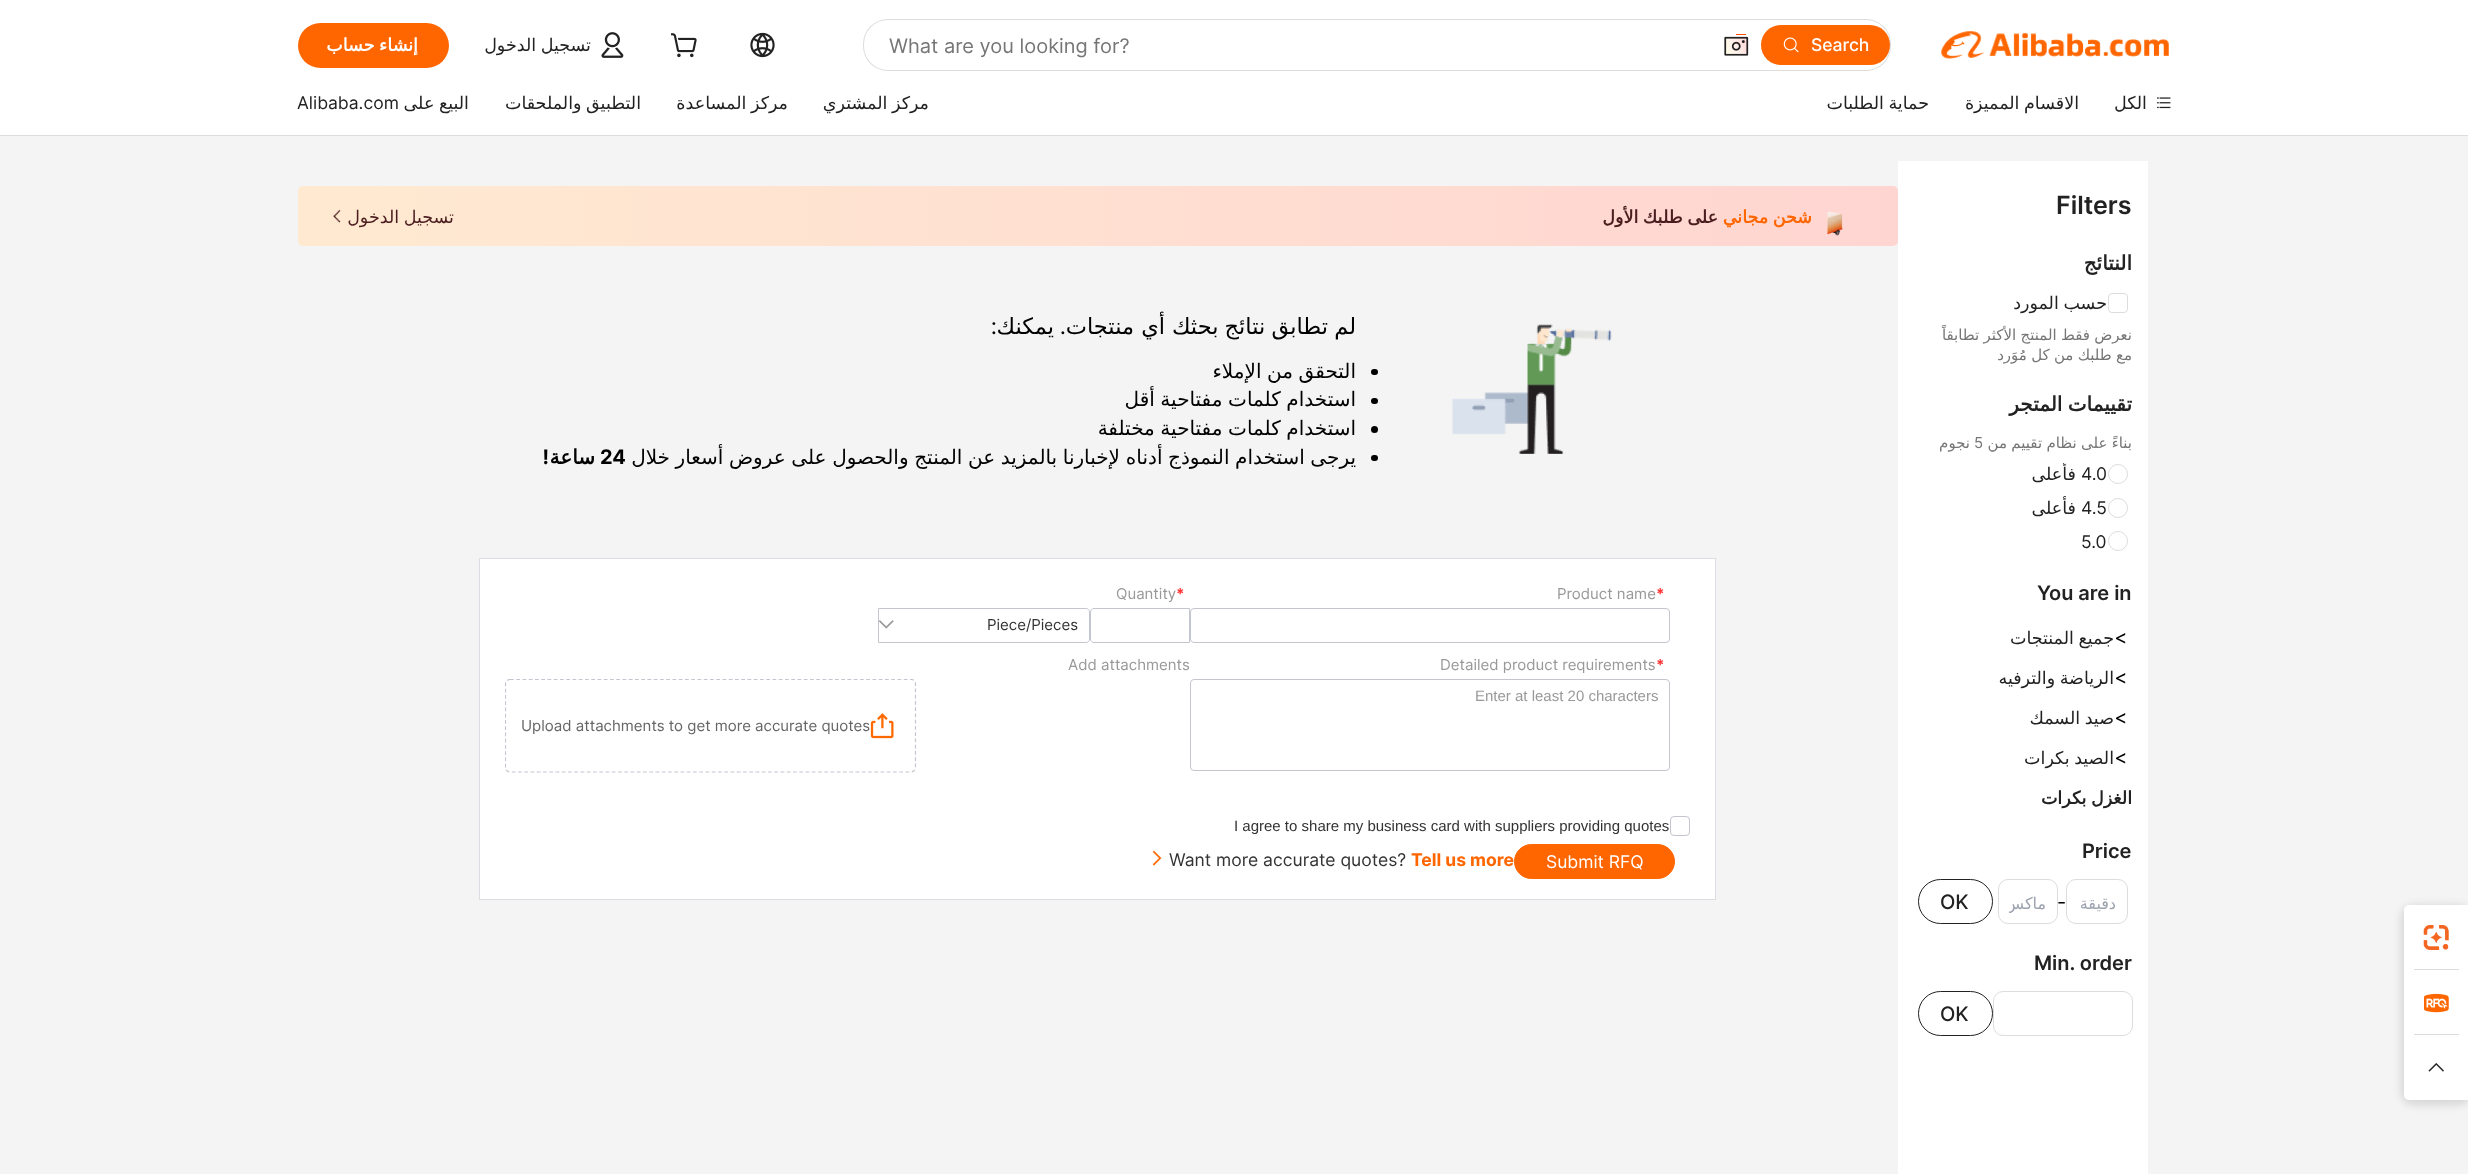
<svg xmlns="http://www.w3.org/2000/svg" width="2468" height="1174">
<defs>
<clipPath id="clip1"><rect x="1913" y="463" width="220" height="91"/></clipPath>
<clipPath id="clip2"><rect x="2009" y="893" width="37" height="20"/></clipPath>
<linearGradient id="g1" gradientUnits="userSpaceOnUse" x1="298" y1="216" x2="1898" y2="216"><stop offset="0" stop-color="#ffead1"/><stop offset="1" stop-color="#ffd5d1"/></linearGradient>
<clipPath id="clip3"><rect x="505" y="679" width="685" height="94"/></clipPath>
</defs>
<rect width="100%" height="100%" fill="#f4f4f4"/>
<rect width="2468" height="135" fill="#fff"/>
<rect y="135" width="2468" height="1" fill="#ddd"/>
<image x="1941" y="31" width="228" height="28" href="media/1.png"/>
<rect x="863" y="19" width="1028" height="52" rx="25" fill="#ddd"/>
<rect x="864" y="20" width="1026" height="50" rx="24" fill="#fff"/>
<rect x="1761" y="25" width="129" height="40" rx="20" fill="#f60"/>
<text x="1811" y="51" style="font-family:Inter;font-size:17.5px;font-weight:500;fill:#fff">Search</text>
<image x="1783" y="37" width="16" height="16" href="media/2.png"/>
<image x="1724" y="34" width="25" height="22" href="media/3.png"/>
<text x="889" y="53" style="font-family:Inter;font-size:20px;fill:#767676">What are you looking for?</text>
<image x="750" y="32" width="25" height="26" href="media/4.png"/>
<image x="671" y="33" width="26" height="25" href="media/5.png"/>
<image x="601" y="32" width="23" height="26" href="media/6.png"/>
<text x="591" y="51" word-spacing="-1" style="font-family:DejaVu Sans;font-size:17.5px;direction:rtl;fill:#222">تسجيل الدخول</text>
<rect x="298" y="23" width="151" height="45" rx="22.5" fill="#f60"/>
<text x="418" y="51" word-spacing="-1" style="font-family:DejaVu Sans;font-size:17.5px;font-weight:bold;direction:rtl;fill:#fff">إنشاء حساب</text>
<image x="2157" y="97" width="14" height="12" href="media/7.png"/>
<text x="2147" y="109" style="font-family:DejaVu Sans;font-size:17.5px;direction:rtl;fill:#222">الكل</text>
<text x="2079" y="109" word-spacing="-1" style="font-family:DejaVu Sans;font-size:17.5px;direction:rtl;fill:#222">الاقسام المميزة</text>
<text x="1929" y="109" word-spacing="-1" style="font-family:DejaVu Sans;font-size:17.5px;direction:rtl;fill:#222">حماية الطلبات</text>
<text x="929" y="109" word-spacing="-1" style="font-family:DejaVu Sans;font-size:17.5px;direction:rtl;fill:#222">مركز المشتري</text>
<text x="788" y="109" word-spacing="-1" style="font-family:DejaVu Sans;font-size:17.5px;direction:rtl;fill:#222">مركز المساعدة</text>
<text x="641" y="109" word-spacing="-1" style="font-family:DejaVu Sans;font-size:17.5px;direction:rtl;fill:#222">التطبيق والملحقات</text>
<text x="469" y="109" word-spacing="-1" style="font-family:DejaVu Sans;font-size:17.5px;direction:rtl;fill:#222">البيع على</text>
<text x="297" y="109" style="font-family:Inter;font-size:17.5px;fill:#222">Alibaba.com</text>
<rect x="2401" y="905" width="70" height="200" rx="13" fill="#0000001f" filter="blur(4px)"/>
<path d="M2414 905h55v195h-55c-5.5 0-10-4.5-10-10v-175c0-5.5 4.5-10 10-10z" fill="#fff"/>
<rect x="2404" y="905" width="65" height="65" rx="5" fill="#fff"/>
<image x="2423" y="925" width="26" height="25" href="media/8.png"/>
<rect x="2414" y="969" width="45" height="1" fill="#ddd"/>
<image x="2424" y="993" width="25" height="20" href="media/9.png"/>
<rect x="2414" y="1034" width="45" height="1" fill="#ddd"/>
<rect x="2404" y="1035" width="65" height="65" rx="5" fill="#fff"/>
<image x="2428" y="1063" width="16" height="9" href="media/10.png"/>
<rect x="1898" y="161" width="250" height="1013" fill="#fff"/>
<text x="2056" y="214" style="font-family:Inter;font-size:25px;font-weight:600;fill:#222">Filters</text>
<text x="2132" y="270" style="font-family:DejaVu Sans;font-size:20px;font-weight:bold;direction:rtl;fill:#222">النتائج</text>
<rect x="2108.5" y="293.5" width="19" height="19" rx="3.5" fill="none" stroke="#ddd"/>
<text x="2107" y="309" word-spacing="-1" style="font-family:DejaVu Sans;font-size:17.5px;direction:rtl;fill:#222">حسب المورد</text>
<text x="2132" y="340" word-spacing="-0.5" style="font-family:DejaVu Sans;font-size:15px;direction:rtl;fill:#767676">نعرض فقط المنتج الأكثر تطابقاً</text>
<text x="2132" y="360" word-spacing="-0.5" style="font-family:DejaVu Sans;font-size:15px;direction:rtl;fill:#767676">مع طلبك من كل مُوَرد</text>
<text x="2132" y="411" word-spacing="-1" style="font-family:DejaVu Sans;font-size:20px;font-weight:bold;direction:rtl;fill:#222">تقييمات المتجر</text>
<text x="2132" y="448" word-spacing="-0.5" style="font-family:DejaVu Sans;font-size:15px;direction:rtl;fill:#767676">بناءً على نظام تقييم من</text>
<text x="1974" y="448" style="font-family:Inter;font-size:15px;fill:#767676">5</text>
<text x="1970" y="448" style="font-family:DejaVu Sans;font-size:15px;direction:rtl;fill:#767676">نجوم</text>
<circle cx="2118" cy="474" r="9.5" fill="none" stroke="#ddd"/>
<text x="2081" y="480" style="font-family:Inter;font-size:17.5px;fill:#222">4.0</text>
<g clip-path="url(#clip1)">
<text x="2076" y="480" style="font-family:DejaVu Sans;font-size:17.5px;direction:rtl;fill:#222">فأعلى</text>
</g>
<circle cx="2118" cy="508" r="9.5" fill="none" stroke="#ddd"/>
<text x="2081" y="514" style="font-family:Inter;font-size:17.5px;fill:#222">4.5</text>
<text x="2076" y="514" style="font-family:DejaVu Sans;font-size:17.5px;direction:rtl;fill:#222">فأعلى</text>
<circle cx="2118" cy="541" r="9.5" fill="none" stroke="#ddd"/>
<text x="2081" y="548" style="font-family:Inter;font-size:17.5px;fill:#222">5.0</text>
<text x="2037" y="600" style="font-family:Inter;font-size:20px;font-weight:600;fill:#222">You are in</text>
<text x="2114" y="644" style="font-family:Inter;font-size:20px;fill:#000">&lt;</text>
<text x="2114" y="644" word-spacing="-1" style="font-family:DejaVu Sans;font-size:17.5px;direction:rtl;fill:#222">جميع المنتجات</text>
<text x="2114" y="684" style="font-family:Inter;font-size:20px;fill:#000">&lt;</text>
<text x="2114" y="684" word-spacing="-1" style="font-family:DejaVu Sans;font-size:17.5px;direction:rtl;fill:#222">الرياضة والترفيه</text>
<text x="2114" y="724" style="font-family:Inter;font-size:20px;fill:#000">&lt;</text>
<text x="2114" y="724" word-spacing="-1" style="font-family:DejaVu Sans;font-size:17.5px;direction:rtl;fill:#222">صيد السمك</text>
<text x="2114" y="764" style="font-family:Inter;font-size:20px;fill:#000">&lt;</text>
<text x="2114" y="764" word-spacing="-1" style="font-family:DejaVu Sans;font-size:17.5px;direction:rtl;fill:#222">الصيد بكرات</text>
<text x="2132" y="804" word-spacing="-1" style="font-family:DejaVu Sans;font-size:17.5px;font-weight:bold;direction:rtl;fill:#222">الغزل بكرات</text>
<text x="2082" y="858" style="font-family:Inter;font-size:20px;font-weight:600;fill:#222">Price</text>
<rect x="2066.5" y="879.5" width="61" height="44" rx="9.5" fill="none" stroke="#ddd"/>
<text x="2116" y="909" style="font-family:DejaVu Sans;font-size:16px;direction:rtl;fill:#9ca3af">دقيقة</text>
<text x="2057" y="909" style="font-family:Inter;font-size:20px;fill:#000">-</text>
<rect x="1998.5" y="879.5" width="59" height="44" rx="9.5" fill="none" stroke="#ddd"/>
<g clip-path="url(#clip2)">
<text x="2046" y="909" style="font-family:DejaVu Sans;font-size:16px;direction:rtl;fill:#9ca3af">ماكس</text>
</g>
<rect x="1918.5" y="879.5" width="74" height="44" rx="22" fill="none" stroke="#222"/>
<text x="1940" y="909" style="font-family:Inter;font-size:20px;font-weight:500;fill:#222">OK</text>
<text x="2034" y="970" style="font-family:Inter;font-size:20px;font-weight:600;fill:#222">Min. order</text>
<rect x="1993.5" y="991.5" width="139" height="44" rx="9.5" fill="none" stroke="#ddd"/>
<rect x="1918.5" y="991.5" width="74" height="44" rx="22" fill="none" stroke="#222"/>
<text x="1940" y="1021" style="font-family:Inter;font-size:20px;font-weight:500;fill:#222">OK</text>
<rect x="298" y="186" width="1600" height="60" rx="5" fill="url(#g1)"/>
<image x="1827" y="211" width="16" height="25" href="media/11.png"/>
<text x="1812" y="223" word-spacing="-1" style="font-family:DejaVu Sans;font-size:17.5px;font-weight:bold;direction:rtl;fill:#f60">شحن مجاني</text>
<text x="1718" y="223" word-spacing="-1" style="font-family:DejaVu Sans;font-size:17.5px;font-weight:bold;direction:rtl;fill:#4b1d1f">على طلبك الأول</text>
<text x="454" y="223" word-spacing="-1" style="font-family:DejaVu Sans;font-size:17.5px;direction:rtl;fill:#4b1d1f">تسجيل الدخول</text>
<image x="333" y="209" width="8" height="14" href="media/12.png"/>
<image x="1452" y="324" width="160" height="130" href="media/13.png"/>
<text x="1356" y="334" word-spacing="-1" style="font-family:DejaVu Sans;font-size:22.5px;direction:rtl;fill:#000">لم تطابق نتائج بحثك</text>
<text x="1165" y="334" style="font-family:DejaVu Sans;font-size:22.5px;direction:rtl;fill:#000">أي منتجات</text>
<text x="1066" y="334" style="font-family:Inter;font-size:22.5px;direction:rtl;fill:#000">.</text>
<text x="1054" y="334" style="font-family:DejaVu Sans;font-size:22.5px;direction:rtl;fill:#000">يمكنك</text>
<text x="997" y="334" style="font-family:Inter;font-size:22.5px;direction:rtl;fill:#000">:</text>
<rect x="1371" y="369" width="7" height="6" rx="3" fill="#000"/>
<text x="1356" y="378" word-spacing="-0.75" style="font-family:DejaVu Sans;font-size:20px;direction:rtl;fill:#000">التحقق من الإملاء</text>
<rect x="1371" y="398" width="7" height="6" rx="3" fill="#000"/>
<text x="1356" y="406" word-spacing="-0.75" style="font-family:DejaVu Sans;font-size:20px;direction:rtl;fill:#000">استخدام كلمات مفتاحية أقل</text>
<circle cx="1374.5" cy="429.5" r="3.5" fill="#000"/>
<text x="1356" y="435" word-spacing="-0.75" style="font-family:DejaVu Sans;font-size:20px;direction:rtl;fill:#000">استخدام كلمات مفتاحية مختلفة</text>
<rect x="1371" y="455" width="7" height="6" rx="3" fill="#000"/>
<text x="1356" y="464" word-spacing="-0.75" style="font-family:DejaVu Sans;font-size:20px;direction:rtl;fill:#000">يرجى استخدام النموذج أدناه</text>
<text x="1120" y="464" word-spacing="-0.75" style="font-family:DejaVu Sans;font-size:20px;direction:rtl;fill:#000">لإخبارنا بالمزيد عن المنتج والحصول على عروض أسعار خلال</text>
<text x="600" y="464" style="font-family:Inter;font-size:20px;font-weight:bold;fill:#000">24</text>
<text x="595" y="464" style="font-family:DejaVu Sans;font-size:20px;font-weight:bold;direction:rtl;fill:#000">ساعة</text>
<text x="549" y="464" style="font-family:Inter;font-size:20px;font-weight:bold;direction:rtl;fill:#000">!</text>
<rect x="479.5" y="558.5" width="1236" height="341" fill="#fff" stroke="#dcdee3"/>
<text x="1656" y="599" style="font-family:Inter;font-size:15px;font-weight:bold;fill:#f33">*</text>
<text x="1557" y="599" style="font-family:Inter;font-size:15px;fill:#999">Product name</text>
<rect x="1190.5" y="608.5" width="479" height="34" rx="3.5" fill="none" stroke="#c4c6cf"/>
<text x="1176" y="599" style="font-family:Inter;font-size:15px;font-weight:bold;fill:#f33">*</text>
<text x="1116" y="599" style="font-family:Inter;font-size:15px;fill:#999">Quantity</text>
<path d="M1094 608.5h95.5v34h-95.5c-2 0-3.5-1.5-3.5-3.5v-27c0-2 1.5-3.5 3.5-3.5z" fill="none" stroke="#c4c6cf"/>
<path d="M878.5 608.5h207.5c2 0 3.5 1.5 3.5 3.5v27c0 2-1.5 3.5-3.5 3.5h-207.5z" fill="none" stroke="#c4c6cf"/>
<text x="987" y="630" style="font-family:Inter;font-size:15px;fill:#333">Piece/Pieces</text>
<image x="879" y="620" width="15" height="9" href="media/14.png"/>
<text x="1656" y="670" style="font-family:Inter;font-size:15px;font-weight:bold;fill:#f33">*</text>
<text x="1440" y="670" style="font-family:Inter;font-size:15px;fill:#999">Detailed product requirements</text>
<rect x="1190.5" y="679.5" width="479" height="91" rx="3.5" fill="none" stroke="#c4c6cf"/>
<text x="1475" y="701" style="font-family:Liberation Sans;font-size:15px;fill:#999">Enter at least 20 characters</text>
<text x="1068" y="670" style="font-family:Inter;font-size:15px;fill:#999">Add attachments</text>
<g clip-path="url(#clip3)">
<path d="M510 679.5h401c2.5 0 4.5 2 4.5 4.5v83.5c0 2.5-2 4.5-4.5 4.5h-401c-2.5 0-4.5-2-4.5-4.5v-83.5c0-2.5 2-4.5 4.5-4.5z" fill="none" stroke="#c4c6cf" stroke-width="1.2" stroke-dasharray="3.75 2.5"/>
</g>
<image x="870" y="713" width="24" height="26" href="media/15.png"/>
<text x="521" y="731" style="font-family:Inter;font-size:15px;fill:#666">Upload attachments to get more accurate quotes</text>
<rect x="1670.5" y="816.5" width="19" height="19" rx="3.5" fill="none" stroke="#c4c6cf"/>
<text x="1234" y="831" style="font-family:Liberation Sans;font-size:15px;fill:#333">I agree to share my business card with suppliers providing quotes</text>
<rect x="1514.5" y="844.5" width="160" height="34" rx="17" fill="#f60" stroke="#f60"/>
<text x="1546" y="868" style="font-family:Inter;font-size:17.5px;fill:#fff">Submit RFQ</text>
<text x="1411" y="866" style="font-family:Inter;font-size:17.5px;font-weight:bold;fill:#f60">Tell us more</text>
<image x="1152" y="850" width="10" height="16" href="media/16.png"/>
<text x="1169" y="866" style="font-family:Inter;font-size:17.5px;fill:#333">Want more accurate quotes?</text>
</svg>
